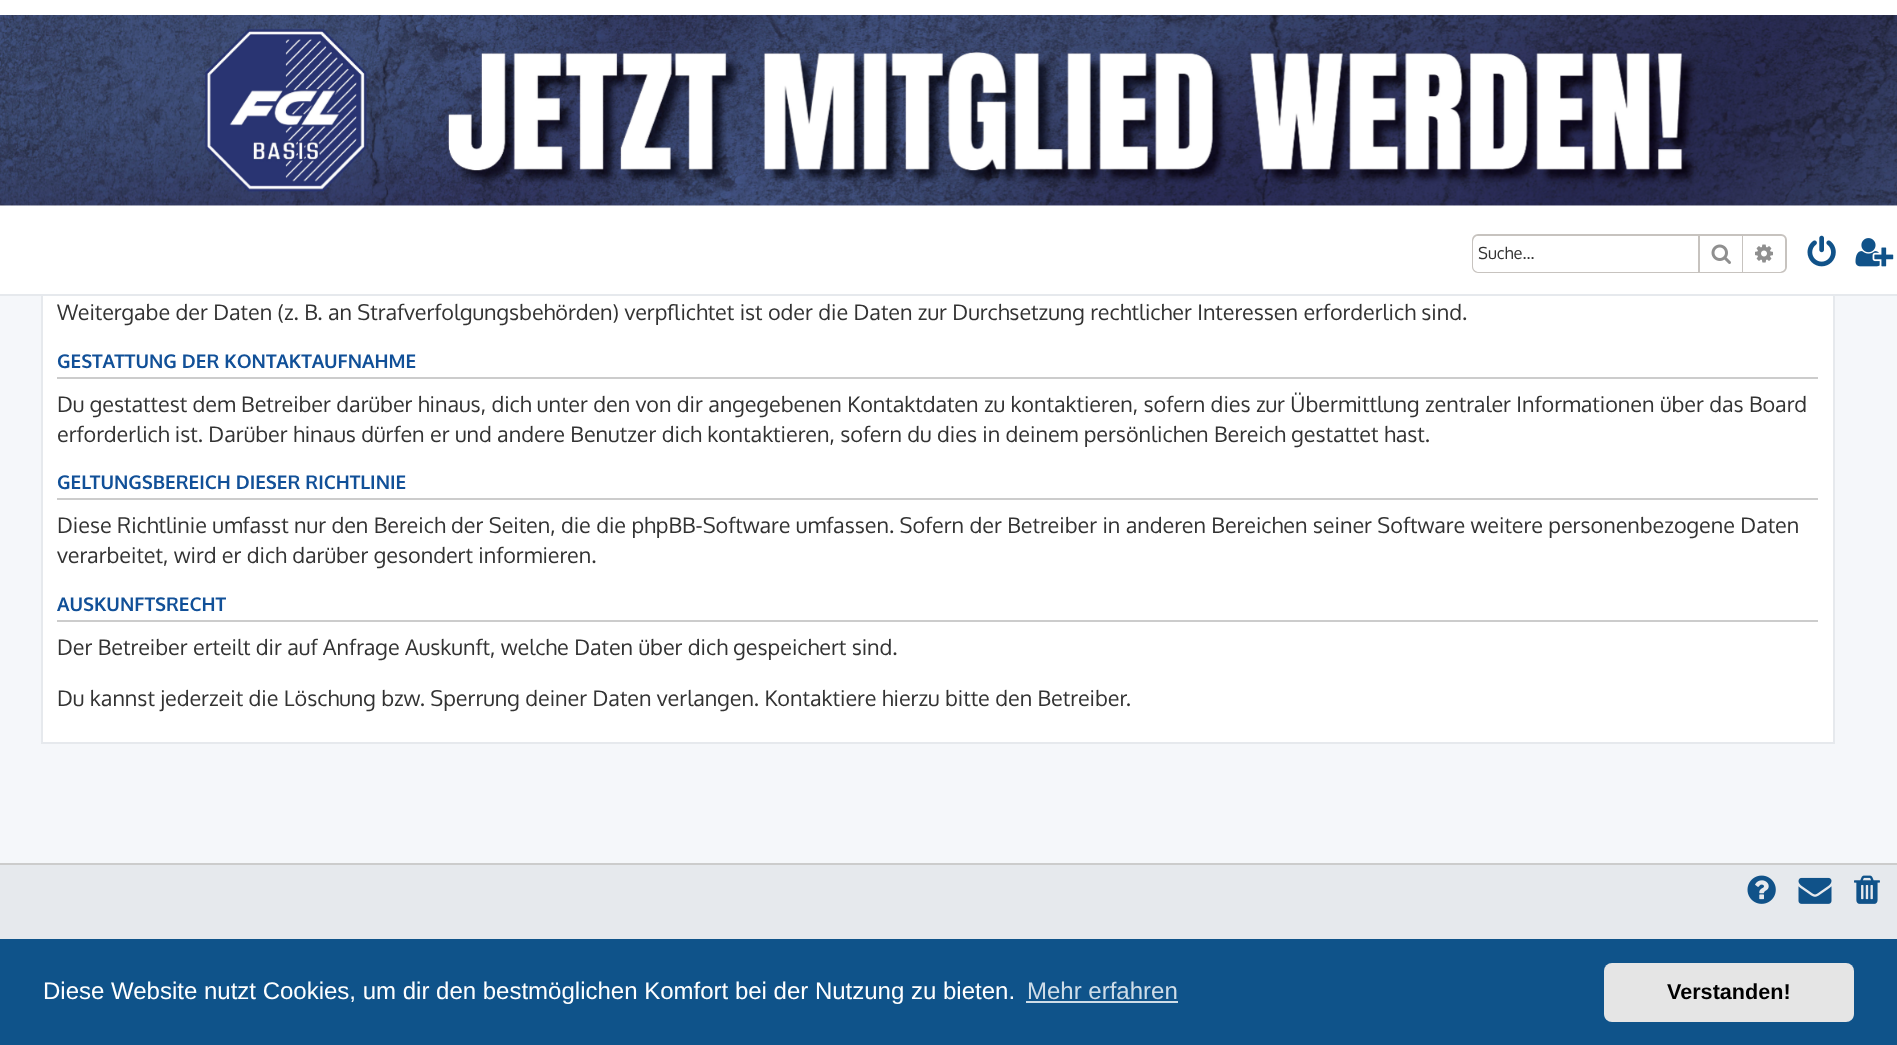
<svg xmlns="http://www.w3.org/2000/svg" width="1897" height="1045">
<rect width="100%" height="100%" fill="#f5f7fa"/>
<rect x="43" y="296" width="1790" height="446" fill="#fff"/>
<rect x="42" y="-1" width="1792" height="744" fill="none" stroke="#e6e9ed" stroke-width="2"/>
<rect width="1897" height="294" fill="#fff"/>
<rect y="294" width="1897" height="2" fill="#e6e9ed"/>
<image x="0" y="15" width="1897" height="191" href="media/1.png"/>
<rect x="1473" y="235" width="313" height="37" rx="5" fill="none" stroke="#c7c3bf" stroke-width="2"/>
<path d="M1479 236h219v36h-219c-3.5 0-6-2.5-6-6v-24c0-3.5 2.5-6 6-6z" fill="#fff"/>
<text x="1478" y="259" style="font-family:Oxygen;font-size:16.5px;fill:#333">Suche…</text>
<rect x="1700" y="271" width="42" height="1" fill="#fff"/>
<rect x="1742" y="236" width="1" height="36" fill="#c7c3bf"/>
<rect x="1698" y="236" width="2" height="36" fill="#c7c3bf"/>
<image x="1711" y="244" width="20" height="20" href="media/2.png"/>
<path d="M1743 236h36c3.5 0 6 2.5 6 6v24c0 3.5-2.5 6-6 6h-36z" fill="#fff"/>
<image x="1755" y="244" width="18" height="19" href="media/3.png"/>
<image x="1807" y="235" width="29" height="32" href="media/4.png"/>
<image x="1855" y="238" width="39" height="29" href="media/5.png"/>
<text x="57" y="320" style="font-family:Oxygen;font-size:21.6px;fill:#333">Weitergabe der Daten (z. B. an Strafverfolgungsbehörden) verpflichtet ist oder die Daten zur Durchsetzung rechtlicher Interessen erforderlich sind.</text>
<rect x="57" y="377" width="1761" height="2" fill="#ccc"/>
<text x="57" y="368" style="font-family:Oxygen;font-size:18.9px;font-weight:bold;fill:#115098">GESTATTUNG DER KONTAKTAUFNAHME</text>
<text x="57" y="412" style="font-family:Oxygen;font-size:21.6px;fill:#333">Du gestattest dem Betreiber darüber hinaus, dich unter den von dir angegebenen Kontaktdaten zu kontaktieren, sofern dies zur Übermittlung zentraler Informationen über das Board</text>
<text x="57" y="442" style="font-family:Oxygen;font-size:21.6px;fill:#333">erforderlich ist. Darüber hinaus dürfen er und andere Benutzer dich kontaktieren, sofern du dies in deinem persönlichen Bereich gestattet hast.</text>
<rect x="57" y="498" width="1761" height="2" fill="#ccc"/>
<text x="57" y="489" style="font-family:Oxygen;font-size:18.9px;font-weight:bold;fill:#115098">GELTUNGSBEREICH DIESER RICHTLINIE</text>
<text x="57" y="533" style="font-family:Oxygen;font-size:21.6px;fill:#333">Diese Richtlinie umfasst nur den Bereich der Seiten, die die phpBB-Software umfassen. Sofern der Betreiber in anderen Bereichen seiner Software weitere personenbezogene Daten</text>
<text x="57" y="563" style="font-family:Oxygen;font-size:21.6px;fill:#333">verarbeitet, wird er dich darüber gesondert informieren.</text>
<rect x="57" y="620" width="1761" height="2" fill="#ccc"/>
<text x="57" y="611" style="font-family:Oxygen;font-size:18.9px;font-weight:bold;fill:#115098">AUSKUNFTSRECHT</text>
<text x="57" y="655" style="font-family:Oxygen;font-size:21.6px;fill:#333">Der Betreiber erteilt dir auf Anfrage Auskunft, welche Daten über dich gespeichert sind.</text>
<text x="57" y="706" style="font-family:Oxygen;font-size:21.6px;fill:#333">Du kannst jederzeit die Löschung bzw. Sperrung deiner Daten verlangen. Kontaktiere hierzu bitte den Betreiber.</text>
<rect y="865" width="1897" height="74" fill="#e6e9ed"/>
<rect y="863" width="1897" height="2" fill="#ccc"/>
<image x="1747" y="875" width="29" height="29" href="media/6.png"/>
<image x="1798" y="877" width="34" height="27" href="media/7.png"/>
<image x="1854" y="875" width="26" height="29" href="media/8.png"/>
<rect y="939" width="1897" height="106" fill="#0f538a"/>
<text x="43" y="999" style="font-family:Liberation Sans;font-size:24px;fill:#fff">Diese Website nutzt Cookies, um dir den bestmöglichen Komfort bei der Nutzung zu bieten.</text>
<text x="1027" y="999" style="font-family:Liberation Sans;font-size:24px;fill:#cfdde8">Mehr erfahren</text>
<rect x="1026" y="1001" width="152" height="2" fill="#cfdde8"/>
<rect x="1604" y="963" width="250" height="59" rx="8" fill="#e5e5e5"/>
<text x="1667" y="999" style="font-family:Liberation Sans;font-size:21.6px;font-weight:bold;fill:#000">Verstanden!</text>
</svg>
